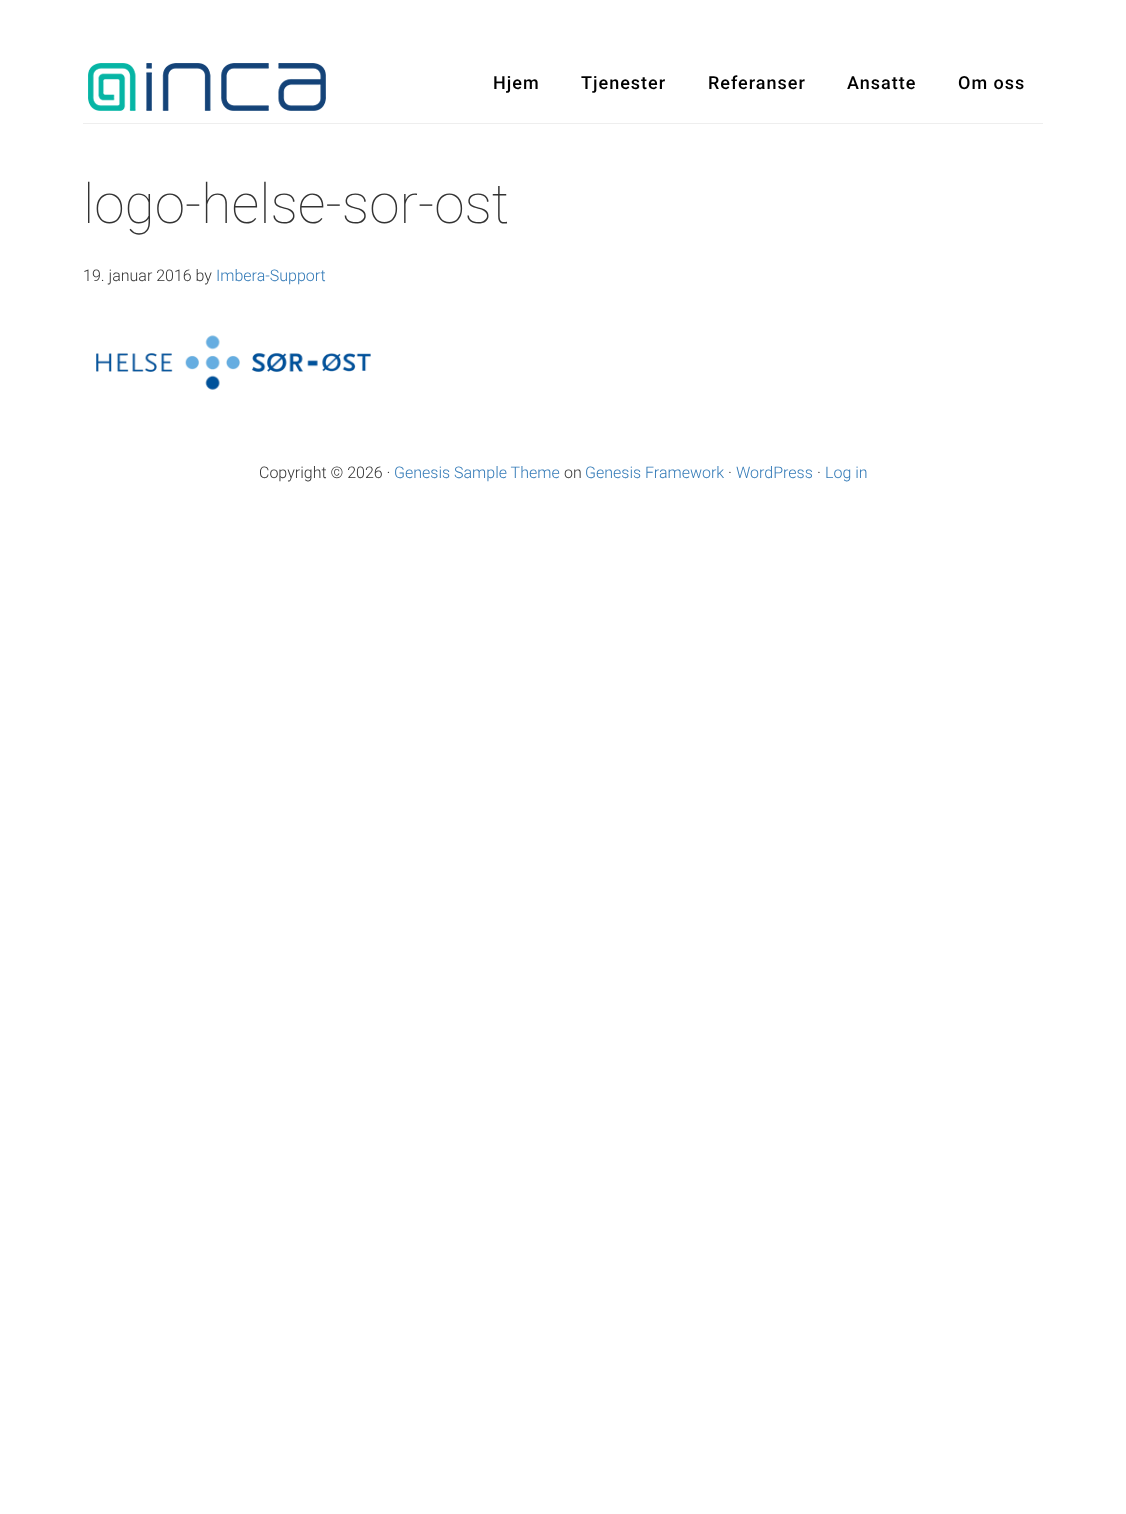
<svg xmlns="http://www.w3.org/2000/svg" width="1126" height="1514">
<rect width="100%" height="100%" fill="#fff"/>
<rect x="83" y="123" width="960" height="1" fill="#eee"/>
<image x="88" y="63" width="238" height="48" href="media/1.png"/>
<text x="493" y="89" style="font-family:Roboto;font-size:18px;font-weight:500;letter-spacing:1px;fill:#000">Hjem</text>
<text x="581" y="89" style="font-family:Roboto;font-size:18px;font-weight:500;letter-spacing:1px;fill:#000">Tjenester</text>
<text x="708" y="89" style="font-family:Roboto;font-size:18px;font-weight:500;letter-spacing:1px;fill:#000">Referanser</text>
<text x="847" y="89" style="font-family:Roboto;font-size:18px;font-weight:500;letter-spacing:1px;fill:#000">Ansatte</text>
<text x="958" y="89" style="font-family:Roboto;font-size:18px;font-weight:500;letter-spacing:1px;fill:#000">Om oss</text>
<text x="83" y="223" style="font-family:Roboto;font-size:55px;font-weight:100;fill:#333">logo-helse-sor-ost</text>
<text x="83" y="281" style="font-family:Roboto;font-size:16px;font-weight:300;fill:#333">19. januar 2016 by</text>
<text x="216" y="281" style="font-family:Roboto;font-size:16px;font-weight:300;fill:#337ab7">Imbera-Support</text>
<image x="96" y="335" width="275" height="55" href="media/2.png"/>
<text x="259" y="478" style="font-family:Roboto;font-size:16px;font-weight:300;fill:#333">Copyright © 2026 ·</text>
<text x="394" y="478" style="font-family:Roboto;font-size:16px;font-weight:300;fill:#337ab7">Genesis Sample Theme</text>
<text x="564" y="478" style="font-family:Roboto;font-size:16px;font-weight:300;fill:#333">on</text>
<text x="585" y="478" style="font-family:Roboto;font-size:16px;font-weight:300;fill:#337ab7">Genesis Framework</text>
<text x="728" y="478" style="font-family:Roboto;font-size:16px;font-weight:300;fill:#333">·</text>
<text x="736" y="478" style="font-family:Roboto;font-size:16px;font-weight:300;fill:#337ab7">WordPress</text>
<text x="817" y="478" style="font-family:Roboto;font-size:16px;font-weight:300;fill:#333">·</text>
<text x="825" y="478" style="font-family:Roboto;font-size:16px;font-weight:300;fill:#337ab7">Log in</text>
</svg>
